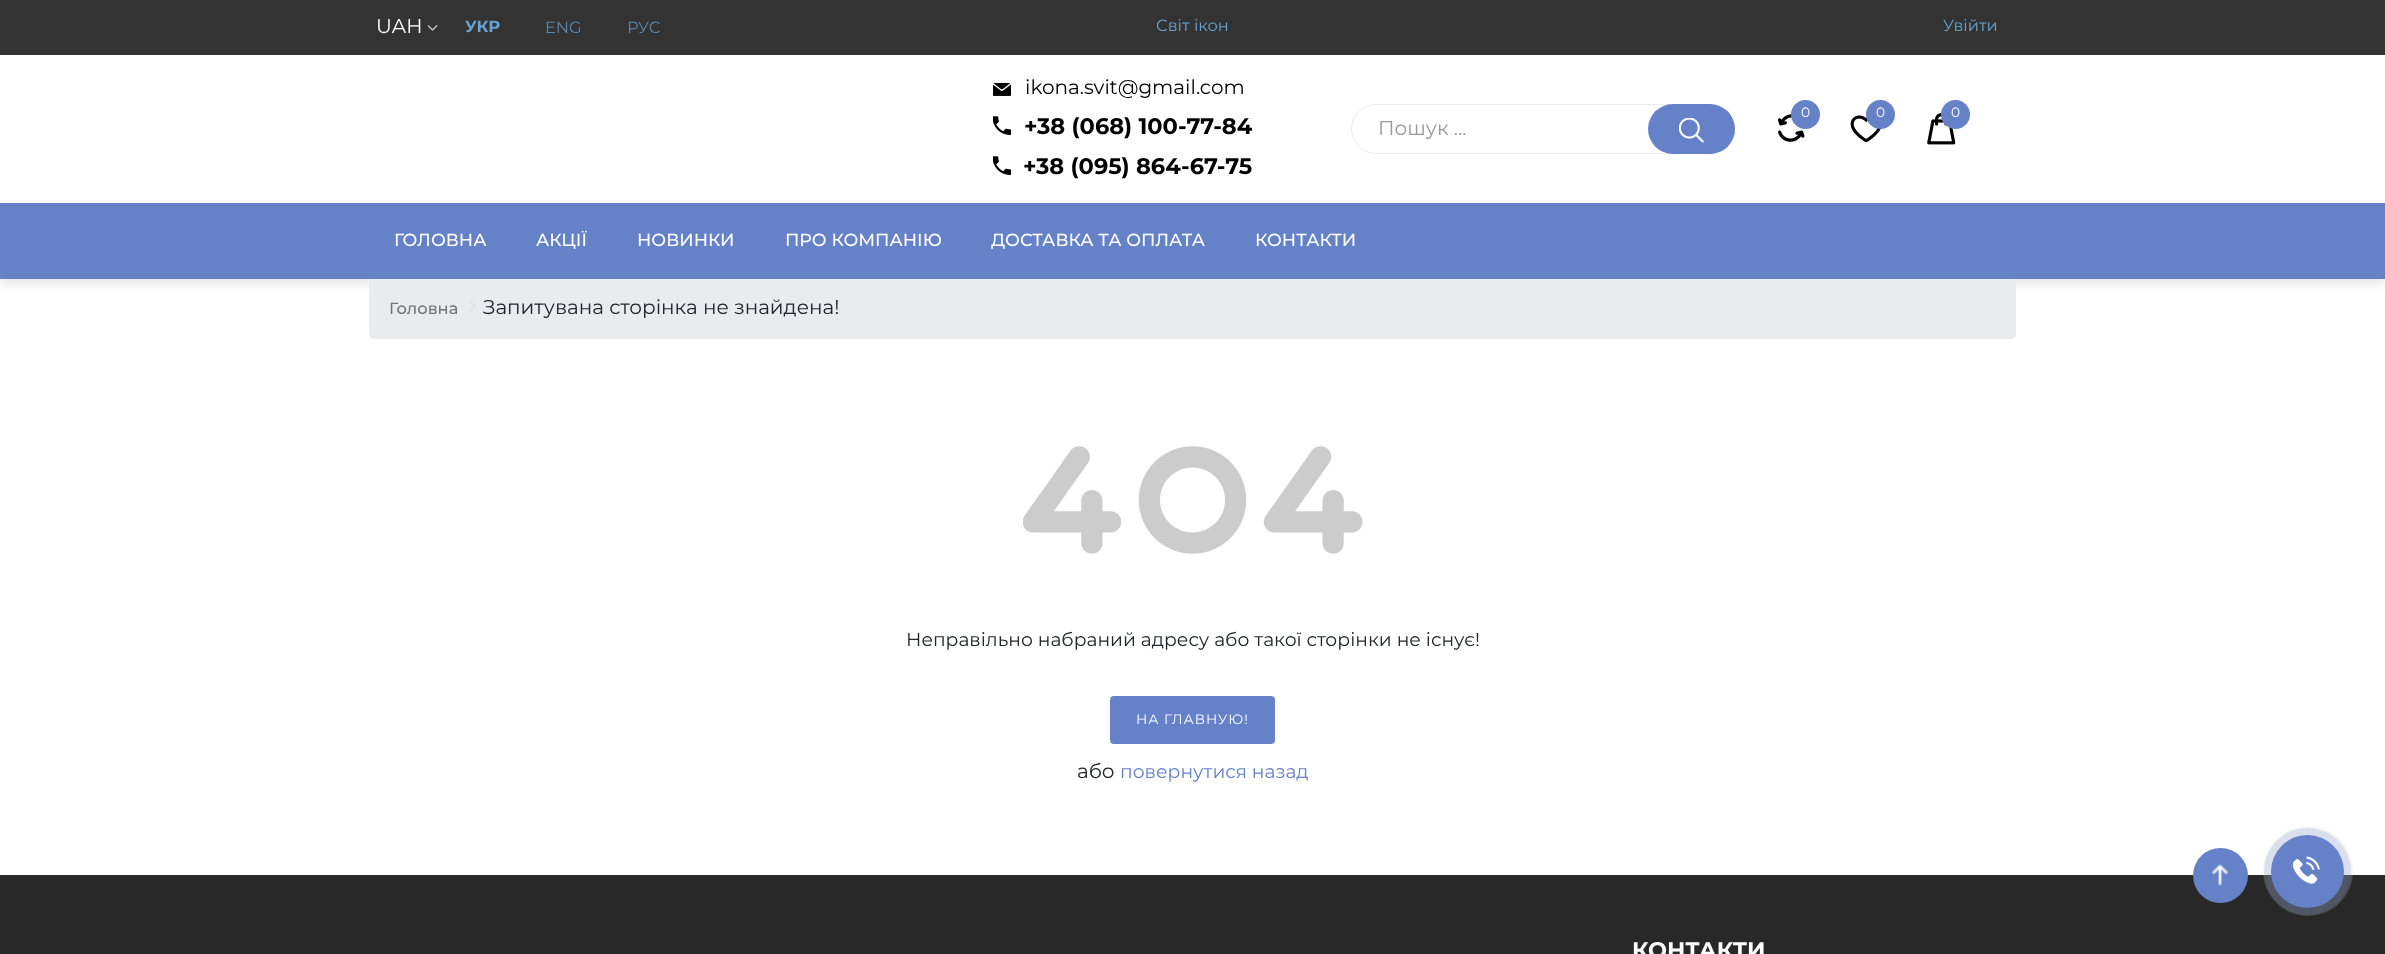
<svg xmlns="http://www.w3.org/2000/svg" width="2385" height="954">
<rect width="100%" height="100%" fill="#fff"/>
<rect width="2385" height="55" fill="#333"/>
<text x="376" y="33" style="font-family:Montserrat;font-size:20px;fill:#fff">UAH</text>
<image x="428" y="25" width="10" height="6" href="media/1.png"/>
<text x="465" y="32" style="font-family:Montserrat;font-size:16.25px;font-weight:bold;fill:#66a3d2">УКР</text>
<text x="545" y="33" style="font-family:Montserrat;font-size:16.25px;fill:#5987aa">ENG</text>
<text x="627" y="33" style="font-family:Montserrat;font-size:16.25px;fill:#5987aa">РУС</text>
<text x="1156" y="31" style="font-family:Montserrat;font-size:16.25px;fill:#66a3d2">Світ ікон</text>
<text x="1943" y="31" style="font-family:Montserrat;font-size:16.25px;fill:#66a3d2">Увiйти</text>
<image x="993" y="83" width="18" height="13" href="media/2.png"/>
<text x="1025" y="94" style="font-family:Montserrat;font-size:20px;fill:#000">ikona.svit@gmail.com</text>
<image x="993" y="116" width="18" height="19" href="media/3.png"/>
<text x="1024" y="134" style="font-family:Montserrat;font-size:22.5px;font-weight:bold;fill:#000">+38 (068) 100-77-84</text>
<image x="993" y="156" width="18" height="19" href="media/3.png"/>
<text x="1023" y="174" style="font-family:Montserrat;font-size:22.5px;font-weight:bold;fill:#000">+38 (095) 864-67-75</text>
<image x="1778" y="114" width="27" height="28" href="media/4.png"/>
<circle cx="1805.5" cy="114.5" r="14.5" fill="#6581c7"/>
<text x="1801" y="117" style="font-family:Montserrat;font-size:13.75px;fill:#fff">0</text>
<image x="1850" y="115" width="31" height="27" href="media/5.png"/>
<circle cx="1880.5" cy="114.5" r="14.5" fill="#6581c7"/>
<text x="1876" y="117" style="font-family:Montserrat;font-size:13.75px;fill:#fff">0</text>
<image x="1927" y="113" width="29" height="32" href="media/6.png"/>
<circle cx="1955.5" cy="114.5" r="14.5" fill="#6581c7"/>
<text x="1951" y="117" style="font-family:Montserrat;font-size:13.75px;fill:#fff">0</text>
<rect x="1351.5" y="104.5" width="346" height="49" rx="24.5" fill="none" stroke="#ececec"/>
<text x="1378" y="135" style="font-family:Montserrat;font-size:20px;fill:#999">Пошук ...</text>
<rect x="1648" y="104" width="87" height="50" rx="25" fill="#6581c7"/>
<image x="1679" y="118" width="25" height="25" href="media/7.png"/>
<rect y="208" width="2385" height="76" fill="#0000001a" filter="blur(5px)"/>
<rect y="203" width="2385" height="76" fill="#6581c7"/>
<text x="394" y="246" style="font-family:Montserrat;font-size:17.5px;font-weight:500;fill:#fff">ГОЛОВНА</text>
<text x="536" y="246" style="font-family:Montserrat;font-size:17.5px;font-weight:500;fill:#fff">АКЦІЇ</text>
<text x="637" y="246" style="font-family:Montserrat;font-size:17.5px;font-weight:500;fill:#fff">НОВИНКИ</text>
<text x="785" y="246" style="font-family:Montserrat;font-size:17.5px;font-weight:500;fill:#fff">ПРО КОМПАНІЮ</text>
<text x="991" y="246" style="font-family:Montserrat;font-size:17.5px;font-weight:500;fill:#fff">ДОСТАВКА ТА ОПЛАТА</text>
<text x="1255" y="246" style="font-family:Montserrat;font-size:17.5px;font-weight:500;fill:#fff">КОНТАКТИ</text>
<rect x="369" y="279" width="1647" height="60" rx="5" fill="#e9ecef"/>
<text x="389" y="314" style="font-family:Montserrat;font-size:16.25px;font-weight:500;fill:#757575">Головна</text>
<path d="M469 301l1-1l6 6l-1 1z" fill="#ddd"/>
<path d="M469 311.5l6-6l1 .5l-6 6.5z" fill="#ddd"/>
<text x="483" y="314" style="font-family:Montserrat;font-size:20px;fill:#212529">Запитувана сторінка не знайдена!</text>
<image x="1023" y="446" width="340" height="108" href="media/8.png"/>
<text x="906" y="646" style="font-family:Montserrat;font-size:18.75px;fill:#212529">Неправільно набраний адресу або такої сторінки не існує!</text>
<rect x="1110" y="696" width="165" height="48" rx="4" fill="#6581c7"/>
<text x="1136" y="724" style="font-family:Montserrat;font-size:13.75px;letter-spacing:1px;fill:#fff">НА ГЛАВНУЮ!</text>
<text x="1077" y="778" style="font-family:Montserrat;font-size:20px;fill:#212529">або</text>
<text x="1120" y="778" style="font-family:Montserrat;font-size:18.75px;fill:#6581c7">повернутися назад</text>
<rect y="875" width="2385" height="79" fill="#282828"/>
<circle cx="2308" cy="871" r="45" fill="#d6d6d633"/>
<circle cx="2220.5" cy="875.5" r="27.5" fill="#6581c7"/>
<image x="2212" y="864" width="16" height="22" href="media/9.png"/>
<circle cx="2307.5" cy="871.5" r="43.5" fill="#6581c733"/>
<circle cx="2308" cy="871" r="34.5" fill="none" stroke="#6581c7"/>
<circle cx="2307.5" cy="871.5" r="36.5" fill="#6581c7"/>
<image x="2293" y="856" width="27" height="28" href="media/10.png"/>
<text x="1632" y="958" style="font-family:Montserrat;font-size:22.5px;font-weight:bold;fill:#fff">КОНТАКТИ</text>
</svg>
